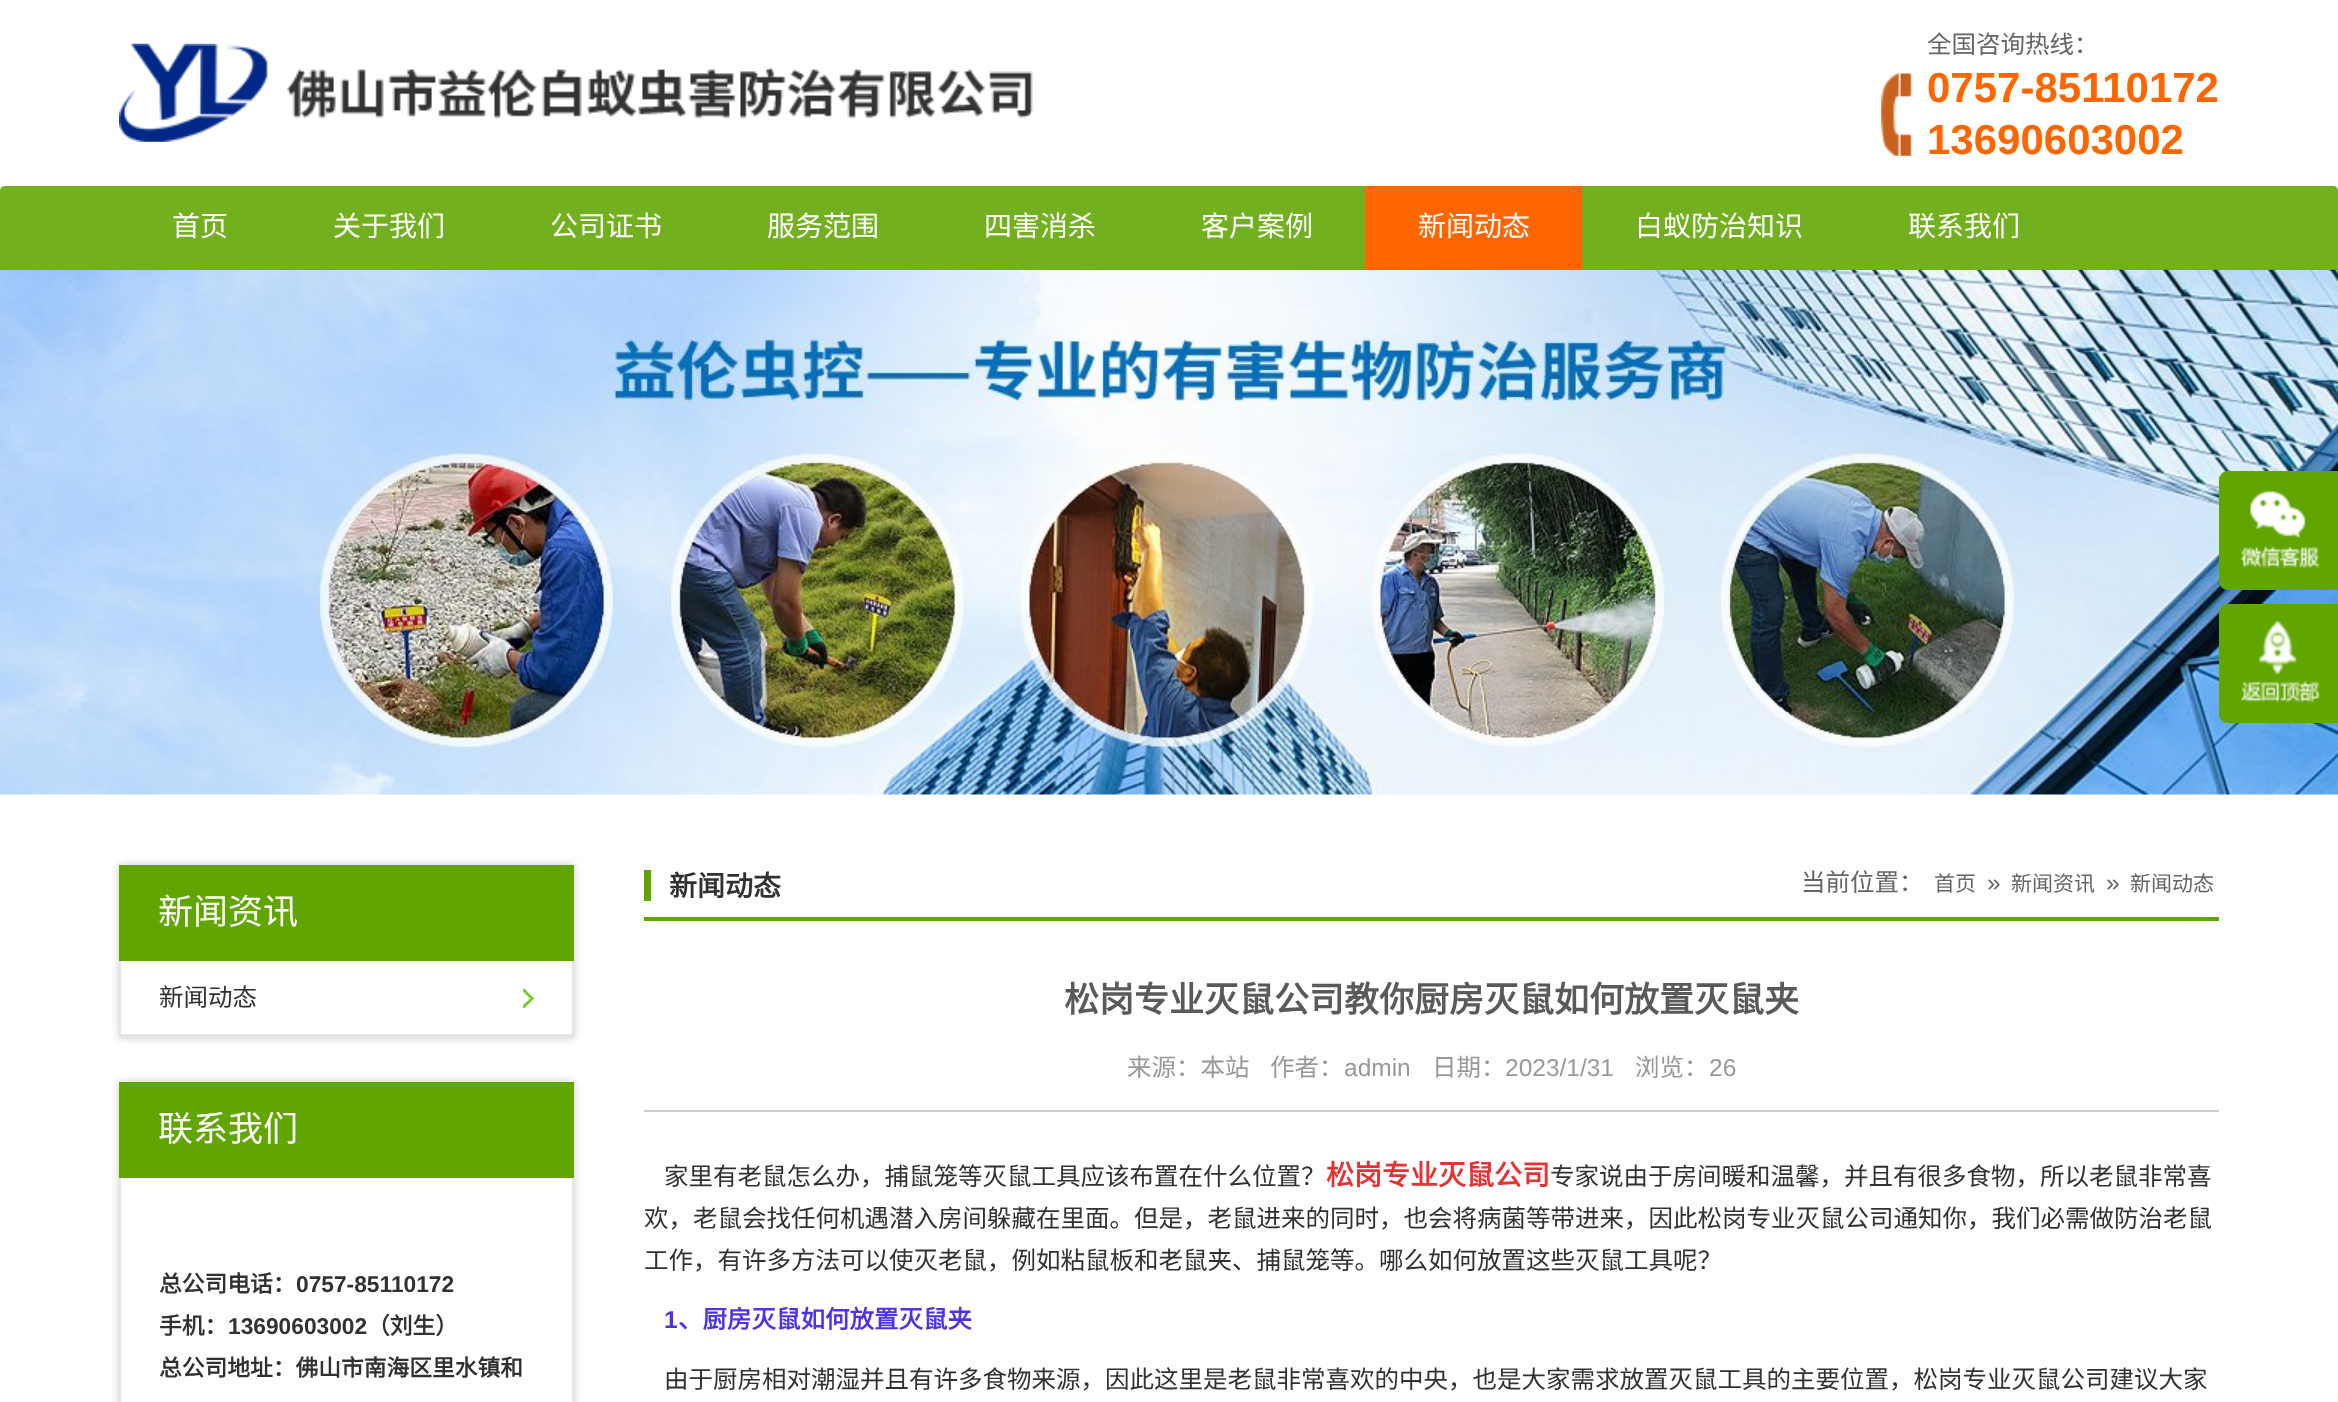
<svg xmlns="http://www.w3.org/2000/svg" width="2338" height="1402">
<defs>
<clipPath id="clip1"><path d="M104 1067h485v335h-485zm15 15h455v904h-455z" clip-rule="evenodd"/></clipPath>
</defs>
<rect width="100%" height="100%" fill="#fff"/>
<image x="119" y="43" width="914" height="99" href="media/1.png"/>
<image x="1881" y="73" width="31" height="83" href="media/2.png"/>
<text x="1927" y="53" style="font-family:Noto Sans CJK SC;font-size:24.5px;fill:#666">全国咨询热线：</text>
<text x="1927" y="102" style="font-family:Liberation Sans;font-size:42px;font-weight:bold;fill:#f60">0757-85110172</text>
<text x="1927" y="154" style="font-family:Liberation Sans;font-size:42px;font-weight:bold;fill:#f60">13690603002</text>
<image x="0" y="269" width="2338" height="526" href="media/3.png"/>
<path d="M5 186h2328c3 0 5 2 5 5v79h-2338v-79c0-3 2-5 5-5z" fill="#60a500e0"/>
<text x="172" y="236" style="font-family:Noto Sans CJK SC;font-size:28px;fill:#fff">首页</text>
<text x="333" y="236" style="font-family:Noto Sans CJK SC;font-size:28px;fill:#fff">关于我们</text>
<text x="550" y="236" style="font-family:Noto Sans CJK SC;font-size:28px;fill:#fff">公司证书</text>
<text x="767" y="236" style="font-family:Noto Sans CJK SC;font-size:28px;fill:#fff">服务范围</text>
<text x="984" y="236" style="font-family:Noto Sans CJK SC;font-size:28px;fill:#fff">四害消杀</text>
<text x="1201" y="236" style="font-family:Noto Sans CJK SC;font-size:28px;fill:#fff">客户案例</text>
<rect x="1365" y="186" width="217" height="84" fill="#f60"/>
<text x="1418" y="236" style="font-family:Noto Sans CJK SC;font-size:28px;fill:#fff">新闻动态</text>
<text x="1635" y="236" style="font-family:Noto Sans CJK SC;font-size:28px;fill:#fff">白蚁防治知识</text>
<text x="1908" y="236" style="font-family:Noto Sans CJK SC;font-size:28px;fill:#fff">联系我们</text>
<path d="M2228 471h110v119h-110c-5 0-9-4-9-9v-101c0-5 4-9 9-9z" fill="#60a500"/>
<image x="2240" y="490" width="80" height="78" href="media/4.png"/>
<path d="M2228 604h110v119h-110c-5 0-9-4-9-9v-101c0-5 4-9 9-9z" fill="#60a500"/>
<image x="2241" y="620" width="79" height="83" href="media/5.png"/>
<rect x="119" y="865" width="455" height="173" fill="#ccc" filter="blur(4.5px)"/>
<rect x="119" y="865" width="455" height="96" fill="#60a500"/>
<text x="158" y="924" style="font-family:Noto Sans CJK SC;font-size:35px;fill:#fff">新闻资讯</text>
<rect x="121" y="961" width="451" height="73" fill="#fff"/>
<rect x="572" y="961" width="2" height="77" fill="#e5e5e5"/>
<rect x="119" y="1036" width="455" height="2" fill="#e5e5e5"/>
<rect x="119" y="961" width="2" height="77" fill="#e5e5e5"/>
<rect x="121" y="1034" width="451" height="2" fill="#e5e5e5"/>
<image x="523" y="988" width="11" height="20" href="media/6.png"/>
<text x="159" y="1006" style="font-family:Noto Sans CJK SC;font-size:24.5px;fill:#313131">新闻动态</text>
<g clip-path="url(#clip1)">
<rect x="119" y="1082" width="455" height="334" fill="#ccc" filter="blur(4.5px)"/>
</g>
<rect x="119" y="1082" width="455" height="96" fill="#60a500"/>
<text x="158" y="1141" style="font-family:Noto Sans CJK SC;font-size:35px;fill:#fff">联系我们</text>
<rect x="572" y="1178" width="2" height="224" fill="#e5e5e5"/>
<rect x="119" y="1178" width="2" height="224" fill="#e5e5e5"/>
<text x="159" y="1292" style="font-family:Noto Sans CJK SC;font-size:22.75px;font-weight:bold;fill:#313131">总公司电话：</text>
<text x="296" y="1292" style="font-family:Liberation Sans;font-size:22.75px;font-weight:bold;fill:#313131">0757-85110172</text>
<text x="159" y="1334" style="font-family:Noto Sans CJK SC;font-size:22.75px;font-weight:bold;fill:#313131">手机：</text>
<text x="228" y="1334" style="font-family:Liberation Sans;font-size:22.75px;font-weight:bold;fill:#313131">13690603002</text>
<text x="367" y="1334" style="font-family:Noto Sans CJK SC;font-size:22.75px;font-weight:bold;fill:#313131">（刘生）</text>
<text x="159" y="1376" style="font-family:Noto Sans CJK SC;font-size:22.75px;font-weight:bold;fill:#313131">总公司地址：佛山市南海区里水镇和</text>
<rect x="644" y="917" width="1575" height="4" fill="#60a500"/>
<rect x="644" y="870" width="7" height="31" fill="#60a500"/>
<text x="669" y="896" style="font-family:Noto Sans CJK SC;font-size:28px;font-weight:bold;fill:#313131">新闻动态</text>
<text x="1801" y="891" style="font-family:Noto Sans CJK SC;font-size:24.5px;fill:#666">当前位置：</text>
<text x="1934" y="891" style="font-family:Noto Sans CJK SC;font-size:21px;fill:#666">首页</text>
<text x="1987" y="891" style="font-family:Liberation Sans;font-size:24.5px;fill:#666">»</text>
<text x="2011" y="891" style="font-family:Noto Sans CJK SC;font-size:21px;fill:#666">新闻资讯</text>
<text x="2106" y="891" style="font-family:Liberation Sans;font-size:24.5px;fill:#666">»</text>
<text x="2130" y="891" style="font-family:Noto Sans CJK SC;font-size:21px;fill:#666">新闻动态</text>
<text x="1064" y="1012" style="font-family:Noto Sans CJK SC;font-size:35px;font-weight:bold;fill:#5a5a5a">松岗专业灭鼠公司教你厨房灭鼠如何放置灭鼠夹</text>
<rect x="644" y="1110" width="1575" height="2" fill="#ccc"/>
<text x="1127" y="1076" style="font-family:Noto Sans CJK SC;font-size:24.5px;fill:#999">来源：本站</text>
<text x="1270" y="1076" style="font-family:Noto Sans CJK SC;font-size:24.5px;fill:#999">作者：</text>
<text x="1344" y="1076" style="font-family:Liberation Sans;font-size:24.5px;fill:#999">admin</text>
<text x="1432" y="1076" style="font-family:Noto Sans CJK SC;font-size:24.5px;fill:#999">日期：</text>
<text x="1505" y="1076" style="font-family:Liberation Sans;font-size:24.5px;fill:#999">2023/1/31</text>
<text x="1635" y="1076" style="font-family:Noto Sans CJK SC;font-size:24.5px;fill:#999">浏览：</text>
<text x="1709" y="1076" style="font-family:Liberation Sans;font-size:24.5px;fill:#999">26</text>
<text x="664" y="1185" style="font-family:Noto Sans CJK SC;font-size:24.5px;fill:#313131">家里有老鼠怎么办，捕鼠笼等灭鼠工具应该布置在什么位置？</text>
<text x="1326" y="1185" style="font-family:Noto Sans CJK SC;font-size:28px;font-weight:bold;fill:#e53333">松岗专业灭鼠公司</text>
<text x="1550" y="1185" style="font-family:Noto Sans CJK SC;font-size:24.5px;fill:#313131">专家说由于房间暖和温馨，并且有很多食物，所以老鼠非常喜</text>
<text x="644" y="1227" style="font-family:Noto Sans CJK SC;font-size:24.5px;fill:#313131">欢，老鼠会找任何机遇潜入房间躲藏在里面。但是，老鼠进来的同时，也会将病菌等带进来，因此松岗专业灭鼠公司通知你，我们必需做防治老鼠</text>
<text x="644" y="1269" style="font-family:Noto Sans CJK SC;font-size:24.5px;fill:#313131">工作，有许多方法可以使灭老鼠，例如粘鼠板和老鼠夹、捕鼠笼等。哪么如何放置这些灭鼠工具呢？</text>
<text x="664" y="1328" style="font-family:Liberation Sans;font-size:24.5px;font-weight:bold;fill:#4c33e5">1</text>
<text x="678" y="1328" style="font-family:Noto Sans CJK SC;font-size:24.5px;font-weight:bold;fill:#4c33e5">、厨房灭鼠如何放置灭鼠夹</text>
<text x="664" y="1388" style="font-family:Noto Sans CJK SC;font-size:24.5px;fill:#313131">由于厨房相对潮湿并且有许多食物来源，因此这里是老鼠非常喜欢的中央，也是大家需求放置灭鼠工具的主要位置，松岗专业灭鼠公司建议大家</text>
</svg>
